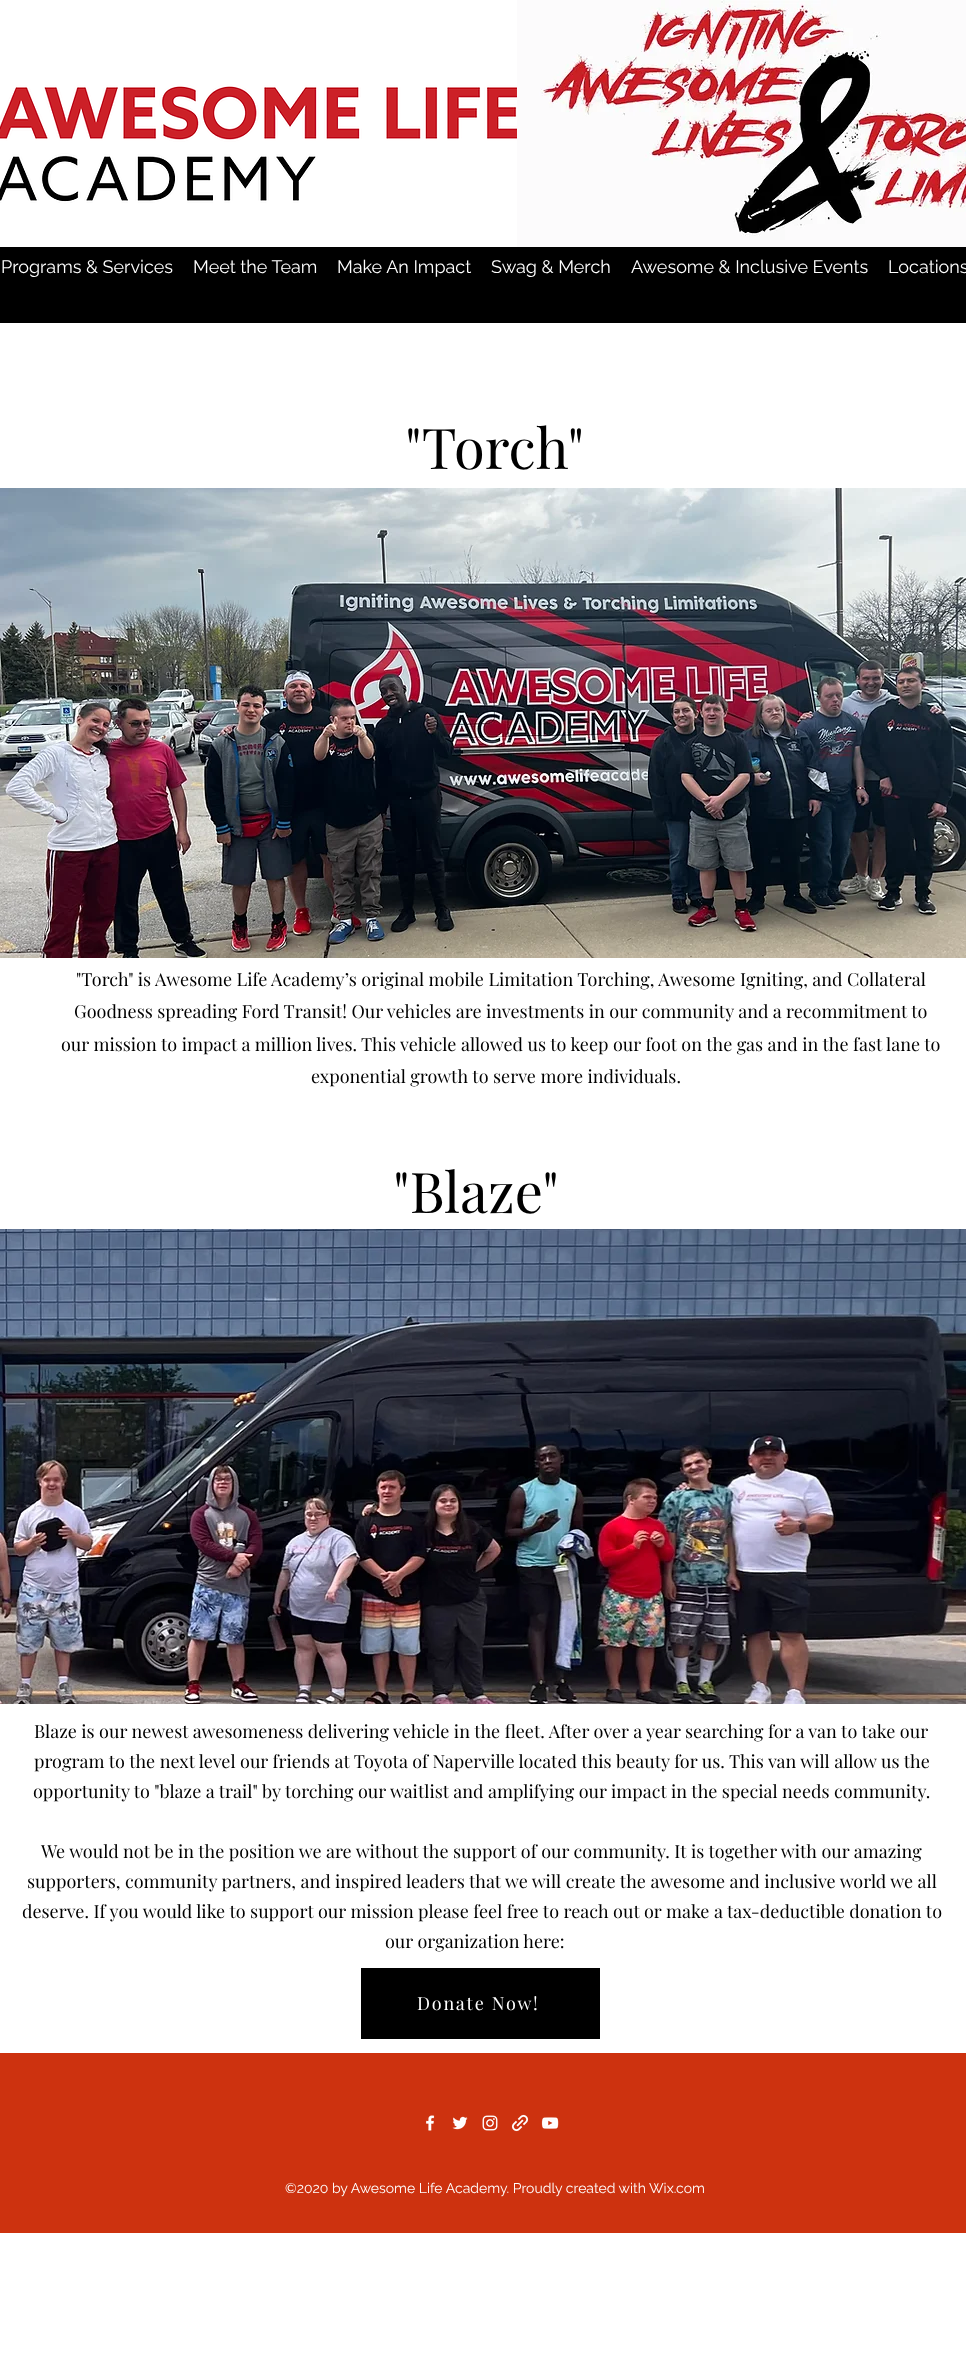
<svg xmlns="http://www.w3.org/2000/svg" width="966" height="2375">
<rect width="100%" height="100%" fill="#fff"/>
<rect y="247" width="966" height="76" fill="#000"/>
<image x="0" y="0" width="517" height="247" href="media/1.png"/>
<image x="517" y="0" width="449" height="247" href="media/2.png"/>
<text x="1" y="273" style="font-family:Raleway;font-size:18px;fill:#fff">Programs &amp; Services</text>
<text x="193" y="273" style="font-family:Raleway;font-size:18px;fill:#fff">Meet the Team</text>
<text x="337" y="273" style="font-family:Raleway;font-size:18px;fill:#fff">Make An Impact</text>
<text x="491" y="273" style="font-family:Raleway;font-size:18px;fill:#fff">Swag &amp; Merch</text>
<text x="631" y="273" style="font-family:Raleway;font-size:18px;fill:#fff">Awesome &amp; Inclusive Events</text>
<text x="888" y="273" style="font-family:Raleway;font-size:18px;fill:#fff">Locations</text>
<text x="405" y="469" style="font-family:Playfair Display;font-size:56px;fill:#000">"Torch"</text>
<image x="0" y="488" width="966" height="470" href="media/3.png"/>
<text x="76" y="986" style="font-family:Playfair Display;font-size:18px;fill:#000">"Torch" is Awesome Life Academy’s original mobile Limitation Torching, Awesome Igniting, and Collateral</text>
<text x="74" y="1018" style="font-family:Playfair Display;font-size:18px;fill:#000">Goodness spreading Ford Transit! Our vehicles are investments in our community and a recommitment to</text>
<text x="61" y="1051" style="font-family:Playfair Display;font-size:18px;fill:#000">our mission to impact a million lives. This vehicle allowed us to keep our foot on the gas and in the fast lane to</text>
<text x="311" y="1083" style="font-family:Playfair Display;font-size:18px;fill:#000">exponential growth to serve more individuals.</text>
<text x="393" y="1213" style="font-family:Playfair Display;font-size:56px;fill:#000">"Blaze"</text>
<image x="0" y="1229" width="966" height="475" href="media/4.png"/>
<text x="34" y="1738" style="font-family:Playfair Display;font-size:18px;fill:#000">Blaze is our newest awesomeness delivering vehicle in the fleet. After over a year searching for a van to take our</text>
<text x="34" y="1768" style="font-family:Playfair Display;font-size:18px;fill:#000">program to the next level our friends at Toyota of Naperville located this beauty for us. This van will allow us the</text>
<text x="33" y="1798" style="font-family:Playfair Display;font-size:18px;fill:#000">opportunity to "blaze a trail" by torching our waitlist and amplifying our impact in the special needs community.</text>
<text x="41" y="1858" style="font-family:Playfair Display;font-size:18px;fill:#000">We would not be in the position we are without the support of our community. It is together with our amazing</text>
<text x="27" y="1888" style="font-family:Playfair Display;font-size:18px;fill:#000">supporters, community partners, and inspired leaders that we will create the awesome and inclusive world we all</text>
<text x="22" y="1918" style="font-family:Playfair Display;font-size:18px;fill:#000">deserve. If you would like to support our mission please feel free to reach out or make a tax-deductible donation to</text>
<text x="385" y="1948" style="font-family:Playfair Display;font-size:18px;fill:#000">our organization here:</text>
<rect x="361" y="1968" width="239" height="71" fill="#000"/>
<text x="417" y="2010" style="font-family:Playfair Display;font-size:18px;letter-spacing:1.75px;fill:#fff">Donate Now!</text>
<rect y="2053" width="966" height="180" fill="#cd320f"/>
<image x="426" y="2115" width="9" height="16" href="media/5.png"/>
<image x="452" y="2116" width="16" height="14" href="media/6.png"/>
<image x="482" y="2115" width="16" height="16" href="media/7.png"/>
<image x="511" y="2114" width="18" height="18" href="media/8.png"/>
<image x="541" y="2117" width="18" height="12" href="media/9.png"/>
<text x="285" y="2193" style="font-family:Raleway;font-size:14px;fill:#fff">©2020 by Awesome Life Academy. Proudly created with Wix.com</text>
</svg>
